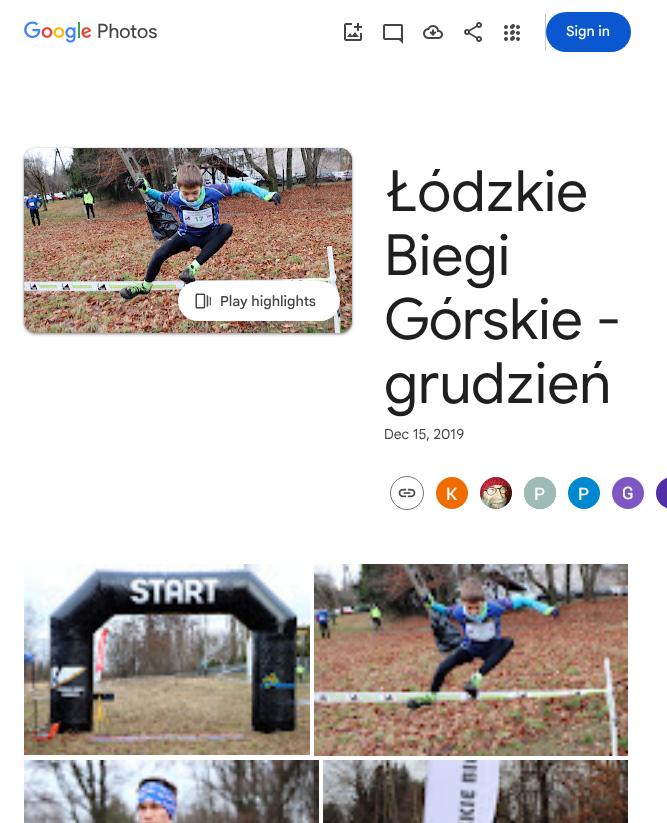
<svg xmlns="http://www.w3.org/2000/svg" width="667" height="823">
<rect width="100%" height="100%" fill="#fff"/>
<image x="24" y="21" width="68" height="22" href="media/1.png"/>
<text x="97" y="38" style="font-family:Product Sans;font-size:20px;fill:#444746">Photos</text>
<image x="344" y="23" width="18" height="18" href="media/2.png"/>
<image x="383" y="24" width="20" height="20" href="media/3.png"/>
<image x="423" y="25" width="20" height="14" href="media/4.png"/>
<image x="464" y="22" width="18" height="20" href="media/5.png"/>
<image x="511" y="24" width="4" height="16" href="media/6.png"/>
<rect x="545" y="14" width="1" height="36" fill="#c4c7c5"/>
<rect x="23" y="148" width="330" height="187" rx="13" fill="#00000026" filter="blur(1.5px)"/>
<rect x="24" y="149" width="328" height="185" rx="12" fill="#0000004d" filter="blur(1px)"/>
<image x="24" y="148" width="328" height="185" href="media/7.png"/>
<rect x="178" y="281" width="162" height="40" rx="20" fill="#fff"/>
<image x="195" y="293" width="16" height="16" href="media/8.png"/>
<text x="220" y="306" style="font-family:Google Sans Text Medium;font-size:14px;font-weight:500;fill:#444746">Play highlights</text>
<text x="384" y="211" style="font-family:Google Sans;font-size:57px;fill:#1f1f1f">Łódzkie</text>
<text x="384" y="275" style="font-family:Google Sans;font-size:57px;fill:#1f1f1f">Biegi</text>
<text x="384" y="339" style="font-family:Google Sans;font-size:57px;fill:#1f1f1f">Górskie -</text>
<text x="384" y="403" style="font-family:Google Sans;font-size:57px;fill:#1f1f1f">grudzień</text>
<text x="384" y="439" style="font-family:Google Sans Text;font-size:14px;fill:#444746">Dec 15, 2019</text>
<circle cx="407" cy="493" r="16.5" fill="none" stroke="#747775"/>
<image x="398" y="488" width="18" height="10" href="media/9.png"/>
<image x="436" y="477" width="32" height="32" href="media/10.png"/>
<image x="480" y="477" width="32" height="32" href="media/11.png"/>
<image x="524" y="477" width="32" height="32" href="media/12.png"/>
<circle cx="540" cy="493" r="16" fill="#ffffff9e"/>
<image x="568" y="477" width="32" height="32" href="media/13.png"/>
<image x="612" y="477" width="32" height="32" href="media/14.png"/>
<image x="656" y="478" width="11" height="30" href="media/15.png"/>
<image x="24" y="564" width="286" height="191" href="media/16.png"/>
<image x="314" y="564" width="314" height="192" href="media/17.png"/>
<image x="24" y="760" width="295" height="63" href="media/18.png"/>
<image x="323" y="760" width="305" height="63" href="media/19.png"/>
<image x="504" y="25" width="16" height="16" href="media/20.png"/>
<rect x="546" y="12" width="85" height="40" rx="20" fill="#0b57d0"/>
<text x="566" y="36" style="font-family:Google Sans Text Medium;font-size:14px;font-weight:500;fill:#fff">Sign in</text>
</svg>
